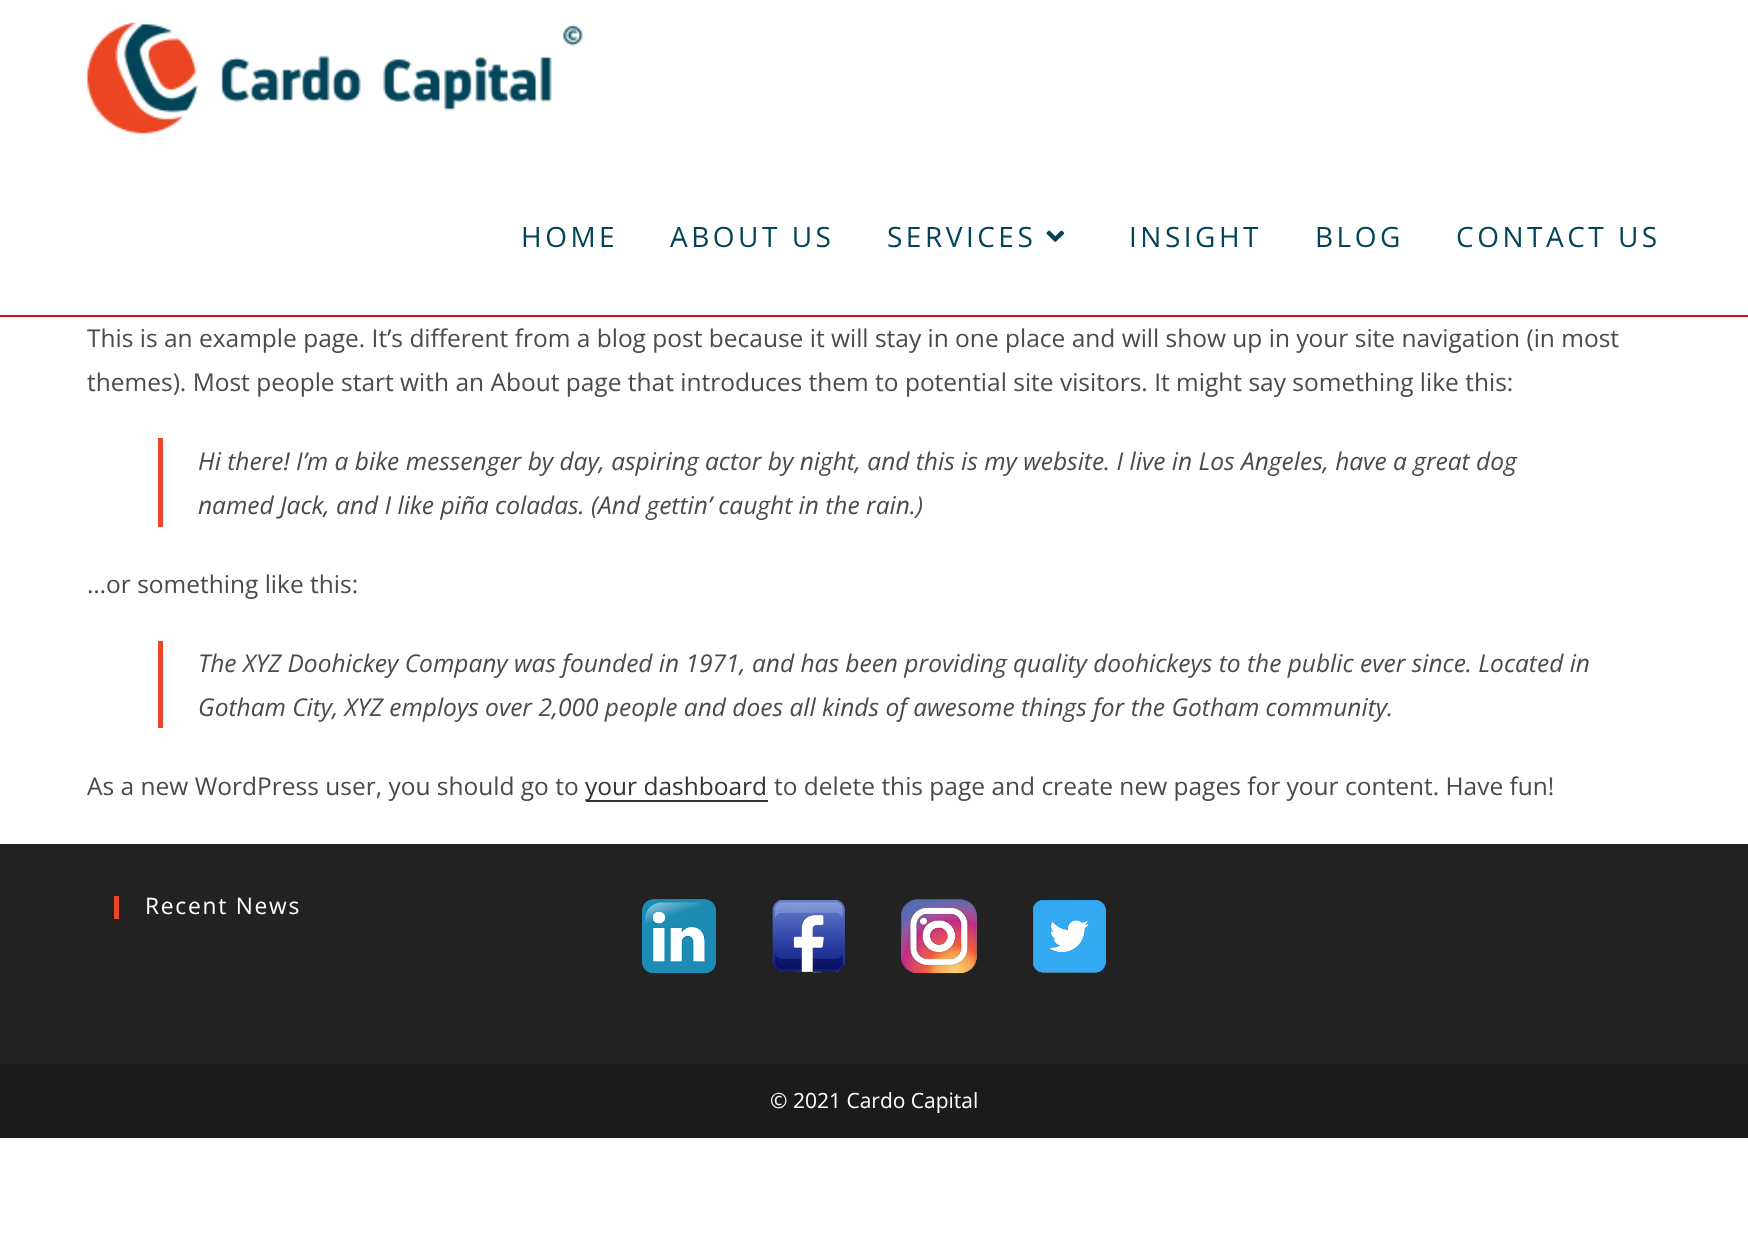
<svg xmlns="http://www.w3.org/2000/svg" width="1748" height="1255">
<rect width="100%" height="100%" fill="#fff"/>
<rect y="315" width="1748" height="2" fill="#dd0d0d"/>
<image x="87" y="22" width="496" height="112" href="media/1.png"/>
<text x="521" y="247" style="font-family:Open Sans;font-size:28px;letter-spacing:3.5px;fill:#024459">HOME</text>
<text x="670" y="247" style="font-family:Open Sans;font-size:28px;letter-spacing:3.5px;fill:#024459">ABOUT US</text>
<text x="887" y="247" style="font-family:Open Sans;font-size:28px;letter-spacing:3.5px;fill:#024459">SERVICES</text>
<image x="1046" y="230" width="18" height="12" href="media/2.png"/>
<text x="1129" y="247" style="font-family:Open Sans;font-size:28px;letter-spacing:3.5px;fill:#024459">INSIGHT</text>
<text x="1315" y="247" style="font-family:Open Sans;font-size:28px;letter-spacing:3.5px;fill:#024459">BLOG</text>
<text x="1456" y="247" style="font-family:Open Sans;font-size:28px;letter-spacing:3.5px;fill:#024459">CONTACT US</text>
<text x="87" y="347" style="font-family:Open Sans;font-size:24.5px;fill:#4a4a4a">This is an example page. It’s different from a blog post because it will stay in one place and will show up in your site navigation (in most</text>
<text x="87" y="391" style="font-family:Open Sans;font-size:24.5px;fill:#4a4a4a">themes). Most people start with an About page that introduces them to potential site visitors. It might say something like this:</text>
<rect x="158" y="438" width="5" height="89" fill="#eb4724"/>
<text x="198" y="470" style="font-family:Open Sans;font-size:24.5px;font-style:italic;fill:#4a4a4a">Hi there! I’m a bike messenger by day, aspiring actor by night, and this is my website. I live in Los Angeles, have a great dog</text>
<text x="198" y="514" style="font-family:Open Sans;font-size:24.5px;font-style:italic;fill:#4a4a4a">named Jack, and I like piña coladas. (And gettin’ caught in the rain.)</text>
<text x="87" y="593" style="font-family:Open Sans;font-size:24.5px;fill:#4a4a4a">…or something like this:</text>
<rect x="158" y="641" width="5" height="87" fill="#eb4724"/>
<text x="198" y="672" style="font-family:Open Sans;font-size:24.5px;font-style:italic;fill:#4a4a4a">The XYZ Doohickey Company was founded in 1971, and has been providing quality doohickeys to the public ever since. Located in</text>
<text x="198" y="716" style="font-family:Open Sans;font-size:24.5px;font-style:italic;fill:#4a4a4a">Gotham City, XYZ employs over 2,000 people and does all kinds of awesome things for the Gotham community.</text>
<text x="87" y="795" style="font-family:Open Sans;font-size:24.5px;fill:#4a4a4a">As a new WordPress user, you should go to</text>
<rect x="586" y="800" width="182" height="2" fill="#333"/>
<text x="585" y="795" style="font-family:Open Sans;font-size:24.5px;fill:#333">your dashboard</text>
<text x="774" y="795" style="font-family:Open Sans;font-size:24.5px;fill:#4a4a4a">to delete this page and create new pages for your content. Have fun!</text>
<rect y="844" width="1748" height="220" fill="#222"/>
<rect x="114" y="896" width="5" height="23" fill="#eb4724"/>
<text x="145" y="914" style="font-family:Open Sans;font-size:22.75px;letter-spacing:1.75px;fill:#fff">Recent News</text>
<image x="642" y="899" width="74" height="75" href="media/3.png"/>
<image x="772" y="900" width="73" height="73" href="media/4.png"/>
<image x="901" y="899" width="76" height="75" href="media/5.png"/>
<image x="1033" y="900" width="73" height="73" href="media/6.png"/>
<rect y="1064" width="1748" height="74" fill="#1b1b1b"/>
<text x="770" y="1108" style="font-family:Open Sans;font-size:21px;fill:#fff">© 2021 Cardo Capital</text>
</svg>
